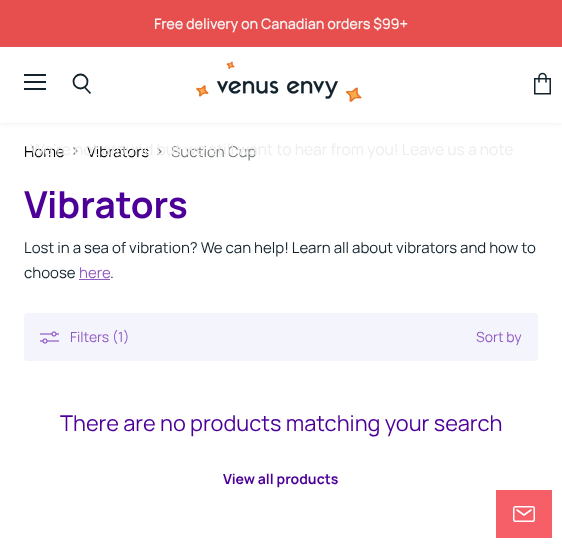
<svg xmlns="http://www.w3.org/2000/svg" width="562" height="548">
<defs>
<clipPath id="clip1"><path d="M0 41h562v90h-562zm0 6h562v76h-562z" clip-rule="evenodd"/></clipPath>
<clipPath id="clip2"><path d="M157 155.5v-8h5v8z"/></clipPath>
</defs>
<rect width="100%" height="100%" fill="#fff"/>
<rect width="562" height="47" fill="#e74e4e"/>
<text x="154" y="29" style="font-family:Manrope;font-size:14px;font-weight:bold;letter-spacing:0.2px;fill:#f5f1f1">Free delivery on Canadian orders $99+</text>
<g clip-path="url(#clip1)">
<rect y="48" width="562" height="76" fill="#bac0be40" filter="blur(2px)"/>
</g>
<image x="196" y="61" width="166" height="41" href="media/1.png"/>
<rect x="24" y="74" width="22" height="2" fill="#13232d"/>
<rect x="24" y="81" width="22" height="2" fill="#13232d"/>
<rect x="24" y="88" width="22" height="2" fill="#13232d"/>
<path d="M90.5 93.5l-6-6.5" fill="none" stroke="#13232d" stroke-width="1.8"/>
<circle cx="80.5" cy="81.5" r="7" fill="none" stroke="#13232d" stroke-width="1.8"/>
<image x="534" y="72" width="17" height="23" href="media/2.png"/>
<text x="24" y="157" style="font-family:Manrope;font-size:15px;fill:#000">Home</text>
<path d="M73.5 154.5l3.5-3.5l-3.5-3.5" fill="none" stroke="#757977" stroke-width="1.2"/>
<text x="87" y="157" style="font-family:Manrope;font-size:15px;fill:#000">Vibrators</text>
<g clip-path="url(#clip2)">
<path d="M157.5 155l3.5-3.5l-3.5-3.5" fill="none" stroke="#757977" stroke-width="1.2"/>
</g>
<text x="171" y="157" style="font-family:Manrope;font-size:15px;fill:#757977">Suction Cup</text>
<text x="30" y="155" style="font-family:Manrope;font-size:15.7px;fill:#eceded">We're not around but we still want to hear from you! Leave us a note</text>
<text x="24" y="218" style="font-family:'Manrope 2';font-size:37px;font-weight:bold;fill:#4d0098">Vibrators</text>
<text x="24" y="253" style="font-family:Manrope;font-size:15px;fill:#13232d">Lost in a sea of vibration? We can help! Learn all about vibrators and how to</text>
<text x="24" y="278" style="font-family:Manrope;font-size:15px;fill:#13232d">choose</text>
<text x="79" y="278" style="font-family:Manrope;font-size:15px;fill:#905ac4">here</text>
<rect x="79" y="279" width="31" height="1" fill="#905ac4"/>
<text x="110" y="278" style="font-family:Manrope;font-size:15px;fill:#13232d">.</text>
<rect x="24" y="313" width="514" height="48" rx="4" fill="#f4f4fc"/>
<image x="40" y="331" width="19" height="13" href="media/3.png"/>
<text x="70" y="342" style="font-family:Manrope;font-size:14px;fill:#905ac4">Filters (1)</text>
<text x="476" y="342" style="font-family:Manrope;font-size:14px;fill:#905ac4">Sort by</text>
<text x="60" y="431" style="font-family:Manrope;font-size:21.75px;fill:#4d0098">There are no products matching your search</text>
<text x="223" y="484" style="font-family:'Manrope 2';font-size:14px;font-weight:bold;fill:#4d0098">View all products</text>
<rect x="496" y="490" width="56" height="48" fill="#f75f68"/>
<rect x="513.75" y="506.75" width="20.5" height="14.5" rx="1.75" fill="none" stroke="#fff" stroke-width="1.5"/>
<path d="M517 510l7 5l7-5" fill="none" stroke="#fff" stroke-width="1.6" stroke-linecap="round" stroke-linejoin="round"/>
</svg>
